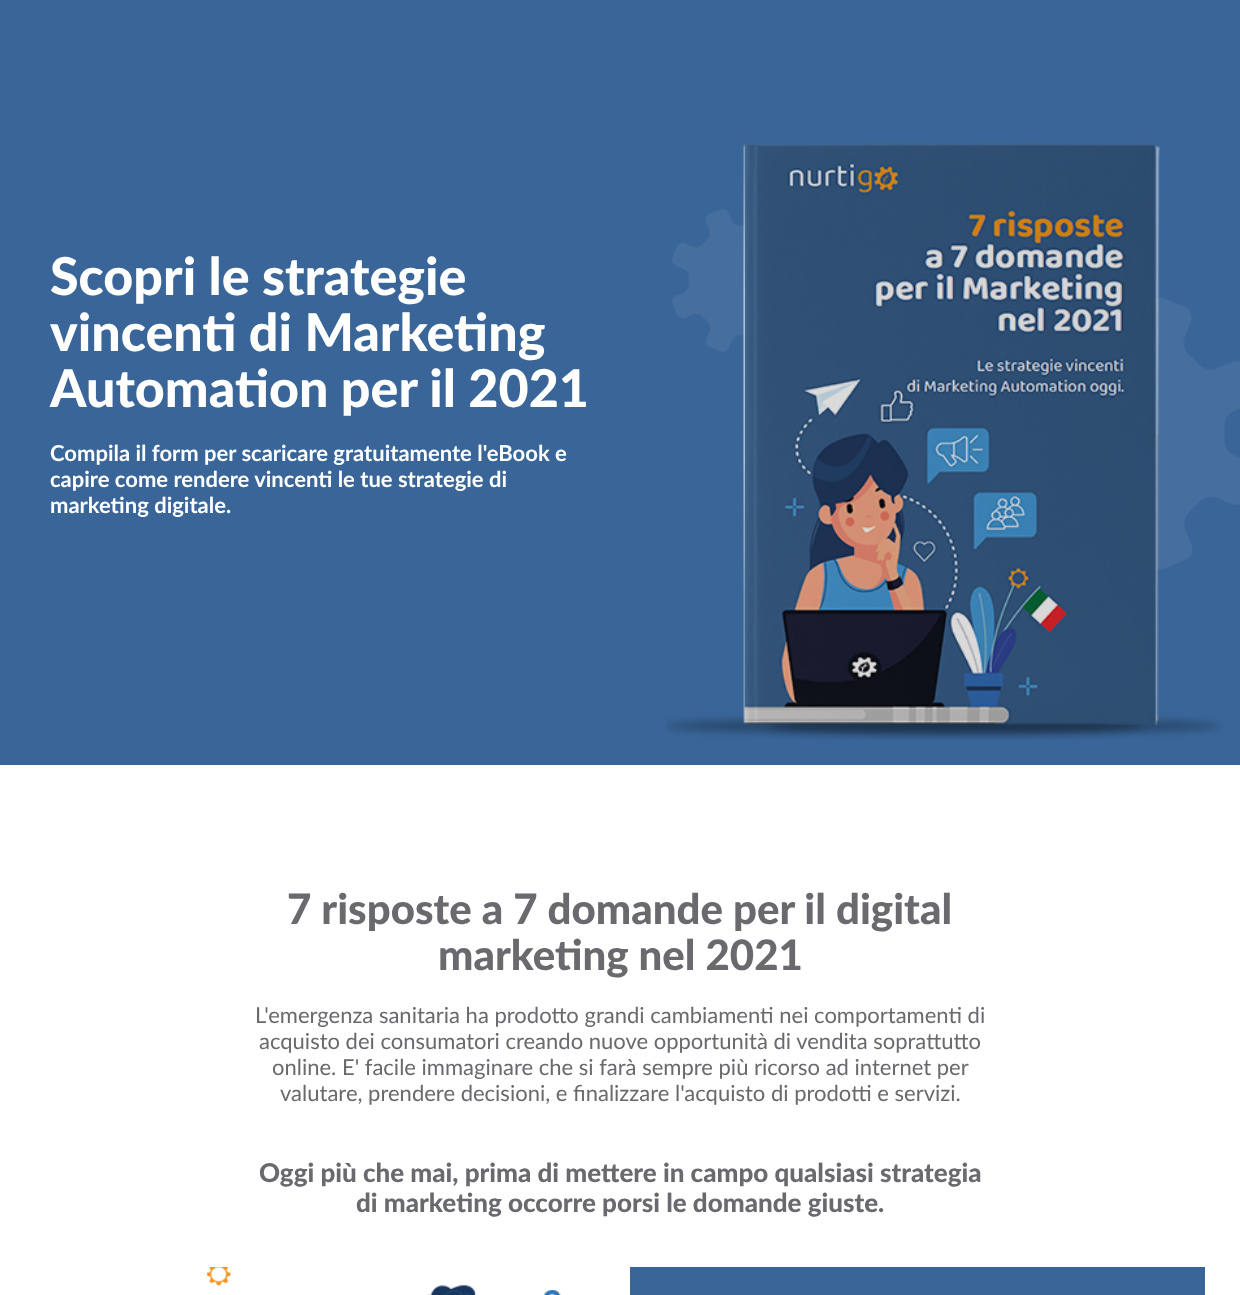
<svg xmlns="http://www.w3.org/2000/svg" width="1240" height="1295">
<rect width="100%" height="100%" fill="#fff"/>
<rect width="1240" height="765" fill="#396598"/>
<text x="50" y="295" style="font-family:Lato;font-size:52px;font-weight:900;fill:#fff">Scopri le strategie</text>
<text x="50" y="351" style="font-family:Lato;font-size:52px;font-weight:900;fill:#fff">vincenti di Marketing</text>
<text x="50" y="407" style="font-family:Lato;font-size:52px;font-weight:900;fill:#fff">Automation per il 2021</text>
<text x="50" y="461" style="font-family:Lato;font-size:22px;font-weight:bold;fill:#fff">Compila il form per scaricare gratuitamente l'eBook e</text>
<text x="50" y="487" style="font-family:Lato;font-size:22px;font-weight:bold;fill:#fff">capire come rendere vincenti le tue strategie di</text>
<text x="50" y="513" style="font-family:Lato;font-size:22px;font-weight:bold;fill:#fff">marketing digitale.</text>
<image x="665" y="143" width="575" height="597" href="media/1.png"/>
<text x="287" y="924" style="font-family:Lato;font-size:42px;font-weight:900;fill:#69696e">7 risposte a 7 domande per il digital</text>
<text x="438" y="970" style="font-family:Lato;font-size:42px;font-weight:900;fill:#69696e">marketing nel 2021</text>
<text x="255" y="1023" style="font-family:Lato;font-size:22px;fill:#69696e">L'emergenza sanitaria ha prodotto grandi cambiamenti nei comportamenti di</text>
<text x="259" y="1049" style="font-family:Lato;font-size:22px;fill:#69696e">acquisto dei consumatori creando nuove opportunità di vendita soprattutto</text>
<text x="272" y="1075" style="font-family:Lato;font-size:22px;fill:#69696e">online. E' facile immaginare che si farà sempre più ricorso ad internet per</text>
<text x="280" y="1101" style="font-family:Lato;font-size:22px;fill:#69696e">valutare, prendere decisioni, e finalizzare l'acquisto di prodotti e servizi.</text>
<text x="259" y="1182" style="font-family:Lato;font-size:26px;font-weight:900;fill:#69696e">Oggi più che mai, prima di mettere in campo qualsiasi strategia</text>
<text x="356" y="1212" style="font-family:Lato;font-size:26px;font-weight:900;fill:#69696e">di marketing occorre porsi le domande giuste.</text>
<image x="206" y="1267" width="355" height="28" href="media/2.png"/>
<rect x="630" y="1267" width="575" height="28" fill="#396598"/>
</svg>
